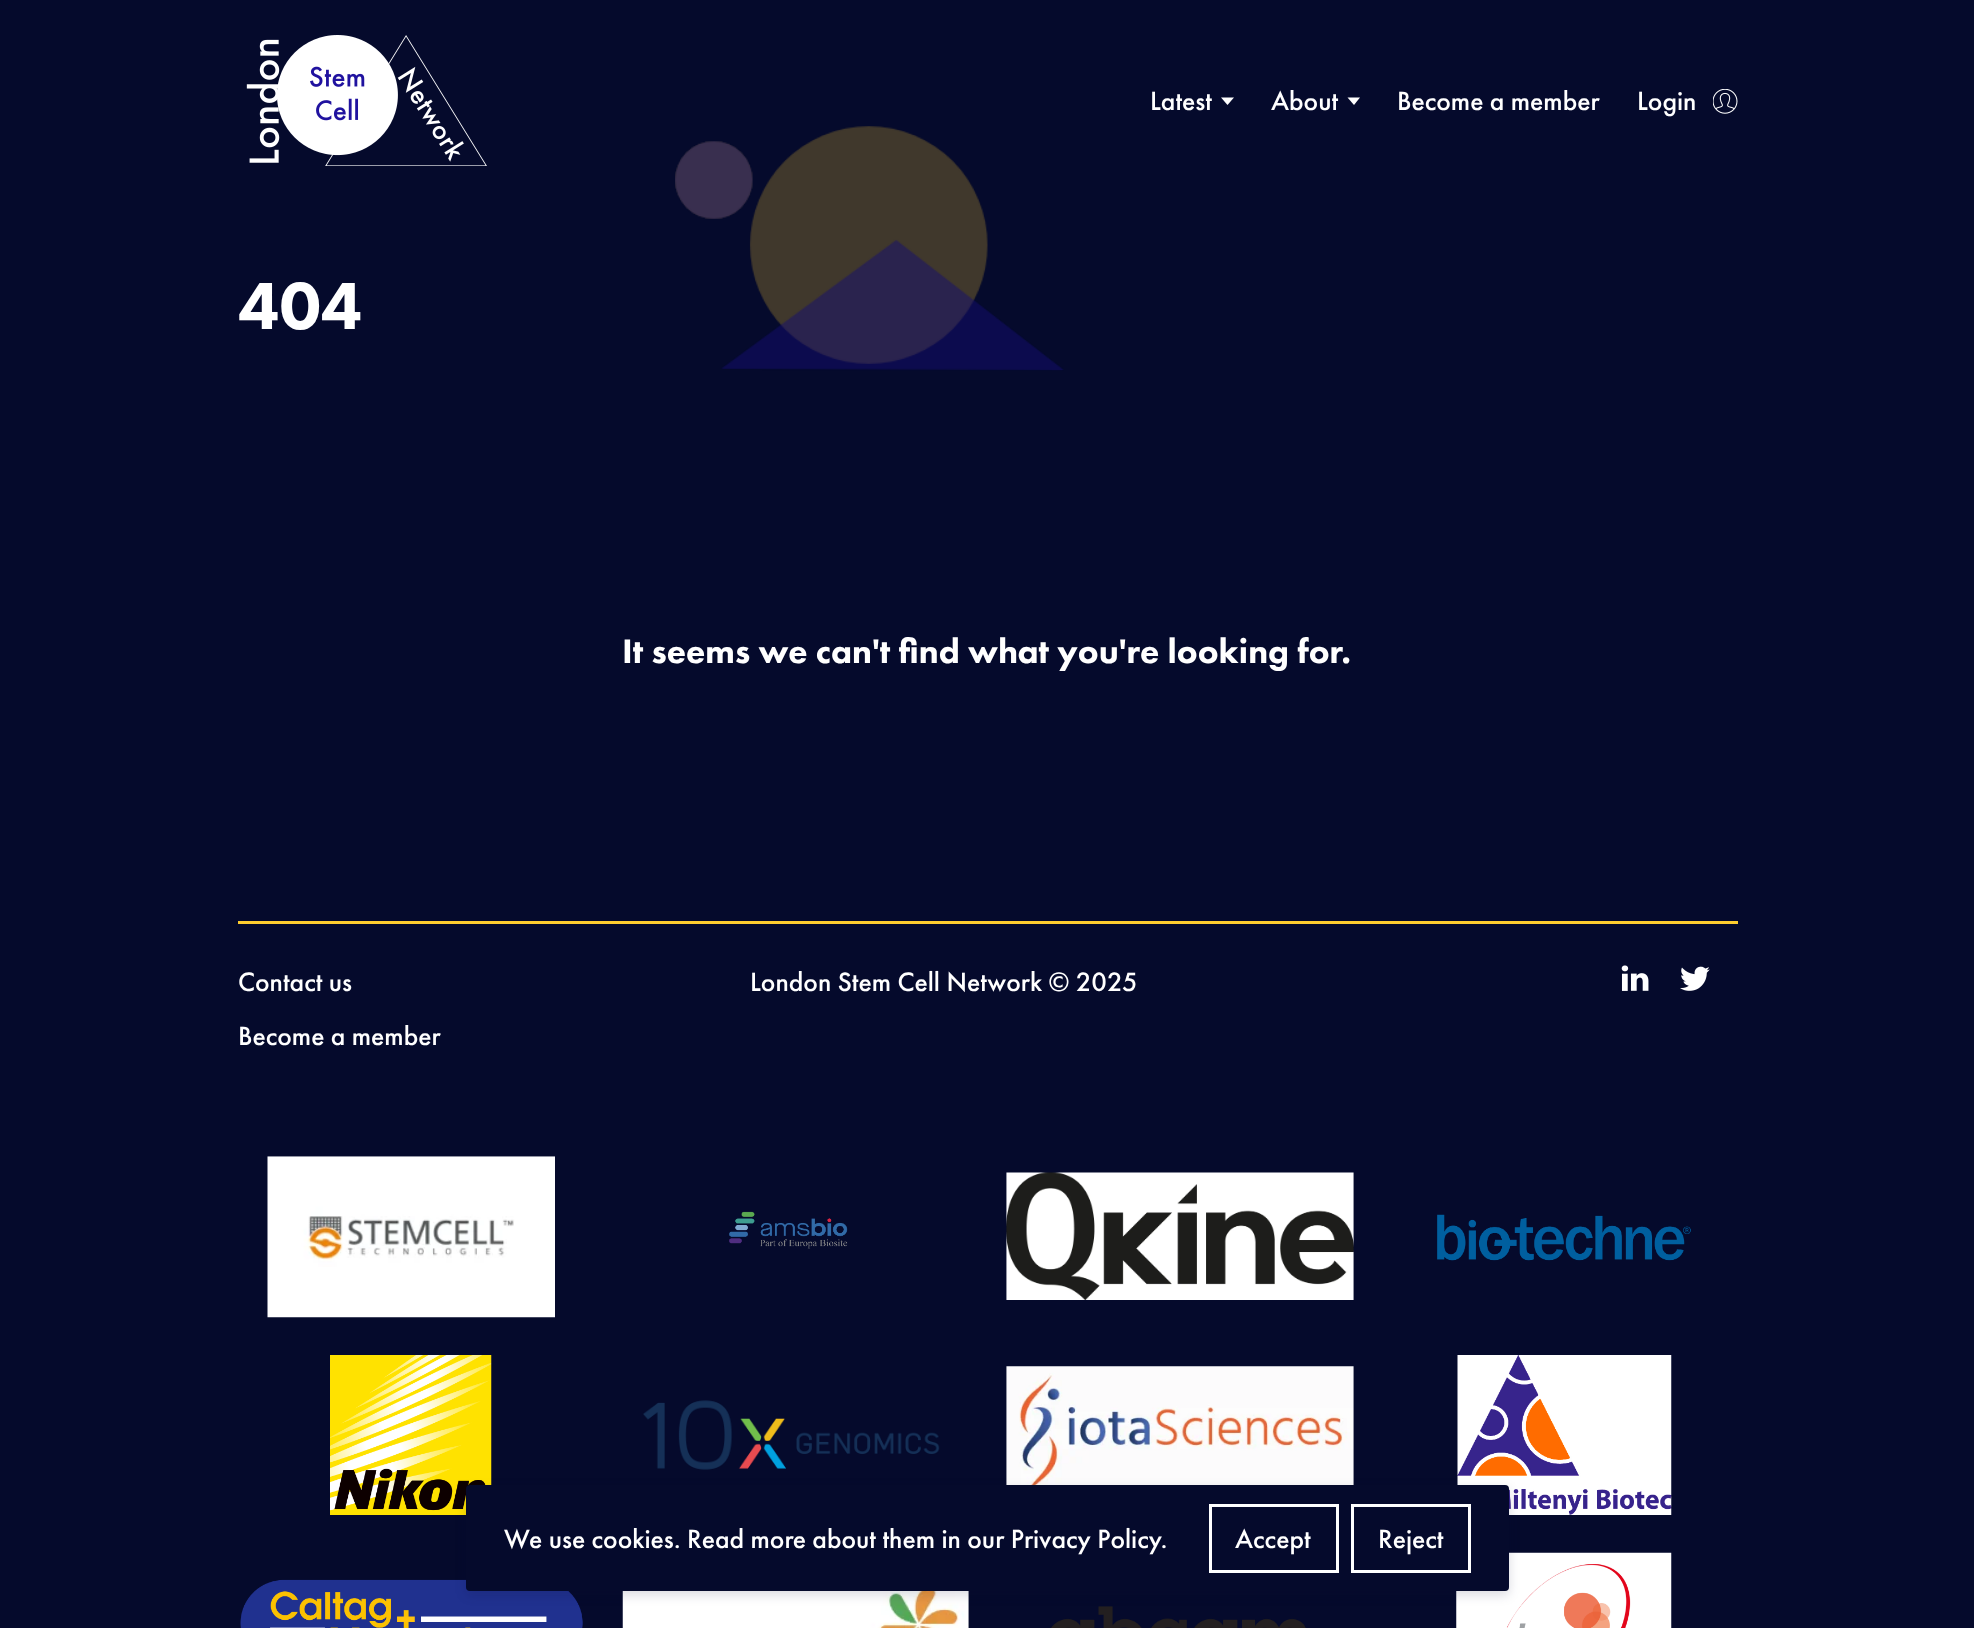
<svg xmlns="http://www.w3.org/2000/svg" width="1974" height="1628">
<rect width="100%" height="100%" fill="#050a2c"/>
<image x="246" y="35" width="241" height="131" href="media/1.png"/>
<text x="1150" y="110" style="font-family:Futura PT;font-size:27.5px;font-weight:500;fill:#fff">Latest</text>
<path d="M1221 97.5h13l-6.5 7.5z" fill="#fff"/>
<text x="1271" y="110" style="font-family:Futura PT;font-size:27.5px;font-weight:500;fill:#fff">About</text>
<path d="M1347.5 97.5h12.5l-6 7.5z" fill="#fff"/>
<text x="1397" y="110" style="font-family:Futura PT;font-size:27.5px;font-weight:500;fill:#fff">Become a member</text>
<text x="1637" y="110" style="font-family:Futura PT;font-size:27.5px;font-weight:500;fill:#fff">Login</text>
<image x="1713" y="89" width="25" height="25" href="media/2.png"/>
<text x="238" y="329" style="font-family:Futura PT;font-size:69px;font-weight:900;fill:#fff">404</text>
<image x="675" y="126" width="389" height="245" href="media/3.png"/>
<text x="622" y="663" style="font-family:Futura PT;font-size:35.2px;font-weight:900;fill:#fff">It seems we can't find what you're looking for.</text>
<rect x="238" y="921" width="1500" height="3" fill="#fecd2f"/>
<text x="238" y="991" style="font-family:Futura PT;font-size:27.5px;font-weight:500;fill:#fff">Contact us</text>
<text x="238" y="1045" style="font-family:Futura PT;font-size:27.5px;font-weight:500;fill:#fff">Become a member</text>
<text x="750" y="991" style="font-family:Futura PT;font-size:27.5px;font-weight:500;fill:#fff">London Stem Cell Network © 2025</text>
<image x="1621" y="965" width="28" height="26" href="media/4.png"/>
<image x="1680" y="966" width="30" height="25" href="media/5.png"/>
<image x="267" y="1156" width="288" height="162" href="media/6.png"/>
<image x="729" y="1211" width="119" height="38" href="media/7.png"/>
<image x="1006" y="1172" width="348" height="128" href="media/8.png"/>
<image x="1437" y="1214" width="254" height="47" href="media/9.png"/>
<image x="330" y="1355" width="162" height="160" href="media/10.png"/>
<image x="643" y="1400" width="297" height="70" href="media/11.png"/>
<image x="1006" y="1366" width="348" height="119" href="media/12.png"/>
<image x="1457" y="1355" width="215" height="160" href="media/13.png"/>
<image x="240" y="1579" width="343" height="49" href="media/14.png"/>
<image x="622" y="1591" width="347" height="37" href="media/15.png"/>
<image x="1051" y="1606" width="255" height="22" href="media/16.png"/>
<image x="1456" y="1552" width="216" height="76" href="media/17.png"/>
<rect x="466" y="1489" width="1043" height="106" rx="4" fill="#050a2c26" filter="blur(5.5px)"/>
<rect x="466" y="1485" width="1043" height="106" rx="4" fill="#050a2c"/>
<text x="504" y="1548" style="font-family:Futura PT;font-size:27.5px;font-weight:500;fill:#fff">We use cookies. Read more about them in our Privacy Policy.</text>
<rect x="1210.5" y="1505.5" width="127" height="66" fill="none" stroke="#fff" stroke-width="3"/>
<text x="1235" y="1548" style="font-family:Futura PT;font-size:27.5px;font-weight:500;fill:#fff">Accept</text>
<rect x="1352.5" y="1505.5" width="117" height="66" fill="none" stroke="#fff" stroke-width="3"/>
<text x="1378" y="1548" style="font-family:Futura PT;font-size:27.5px;font-weight:500;fill:#fff">Reject</text>
</svg>
